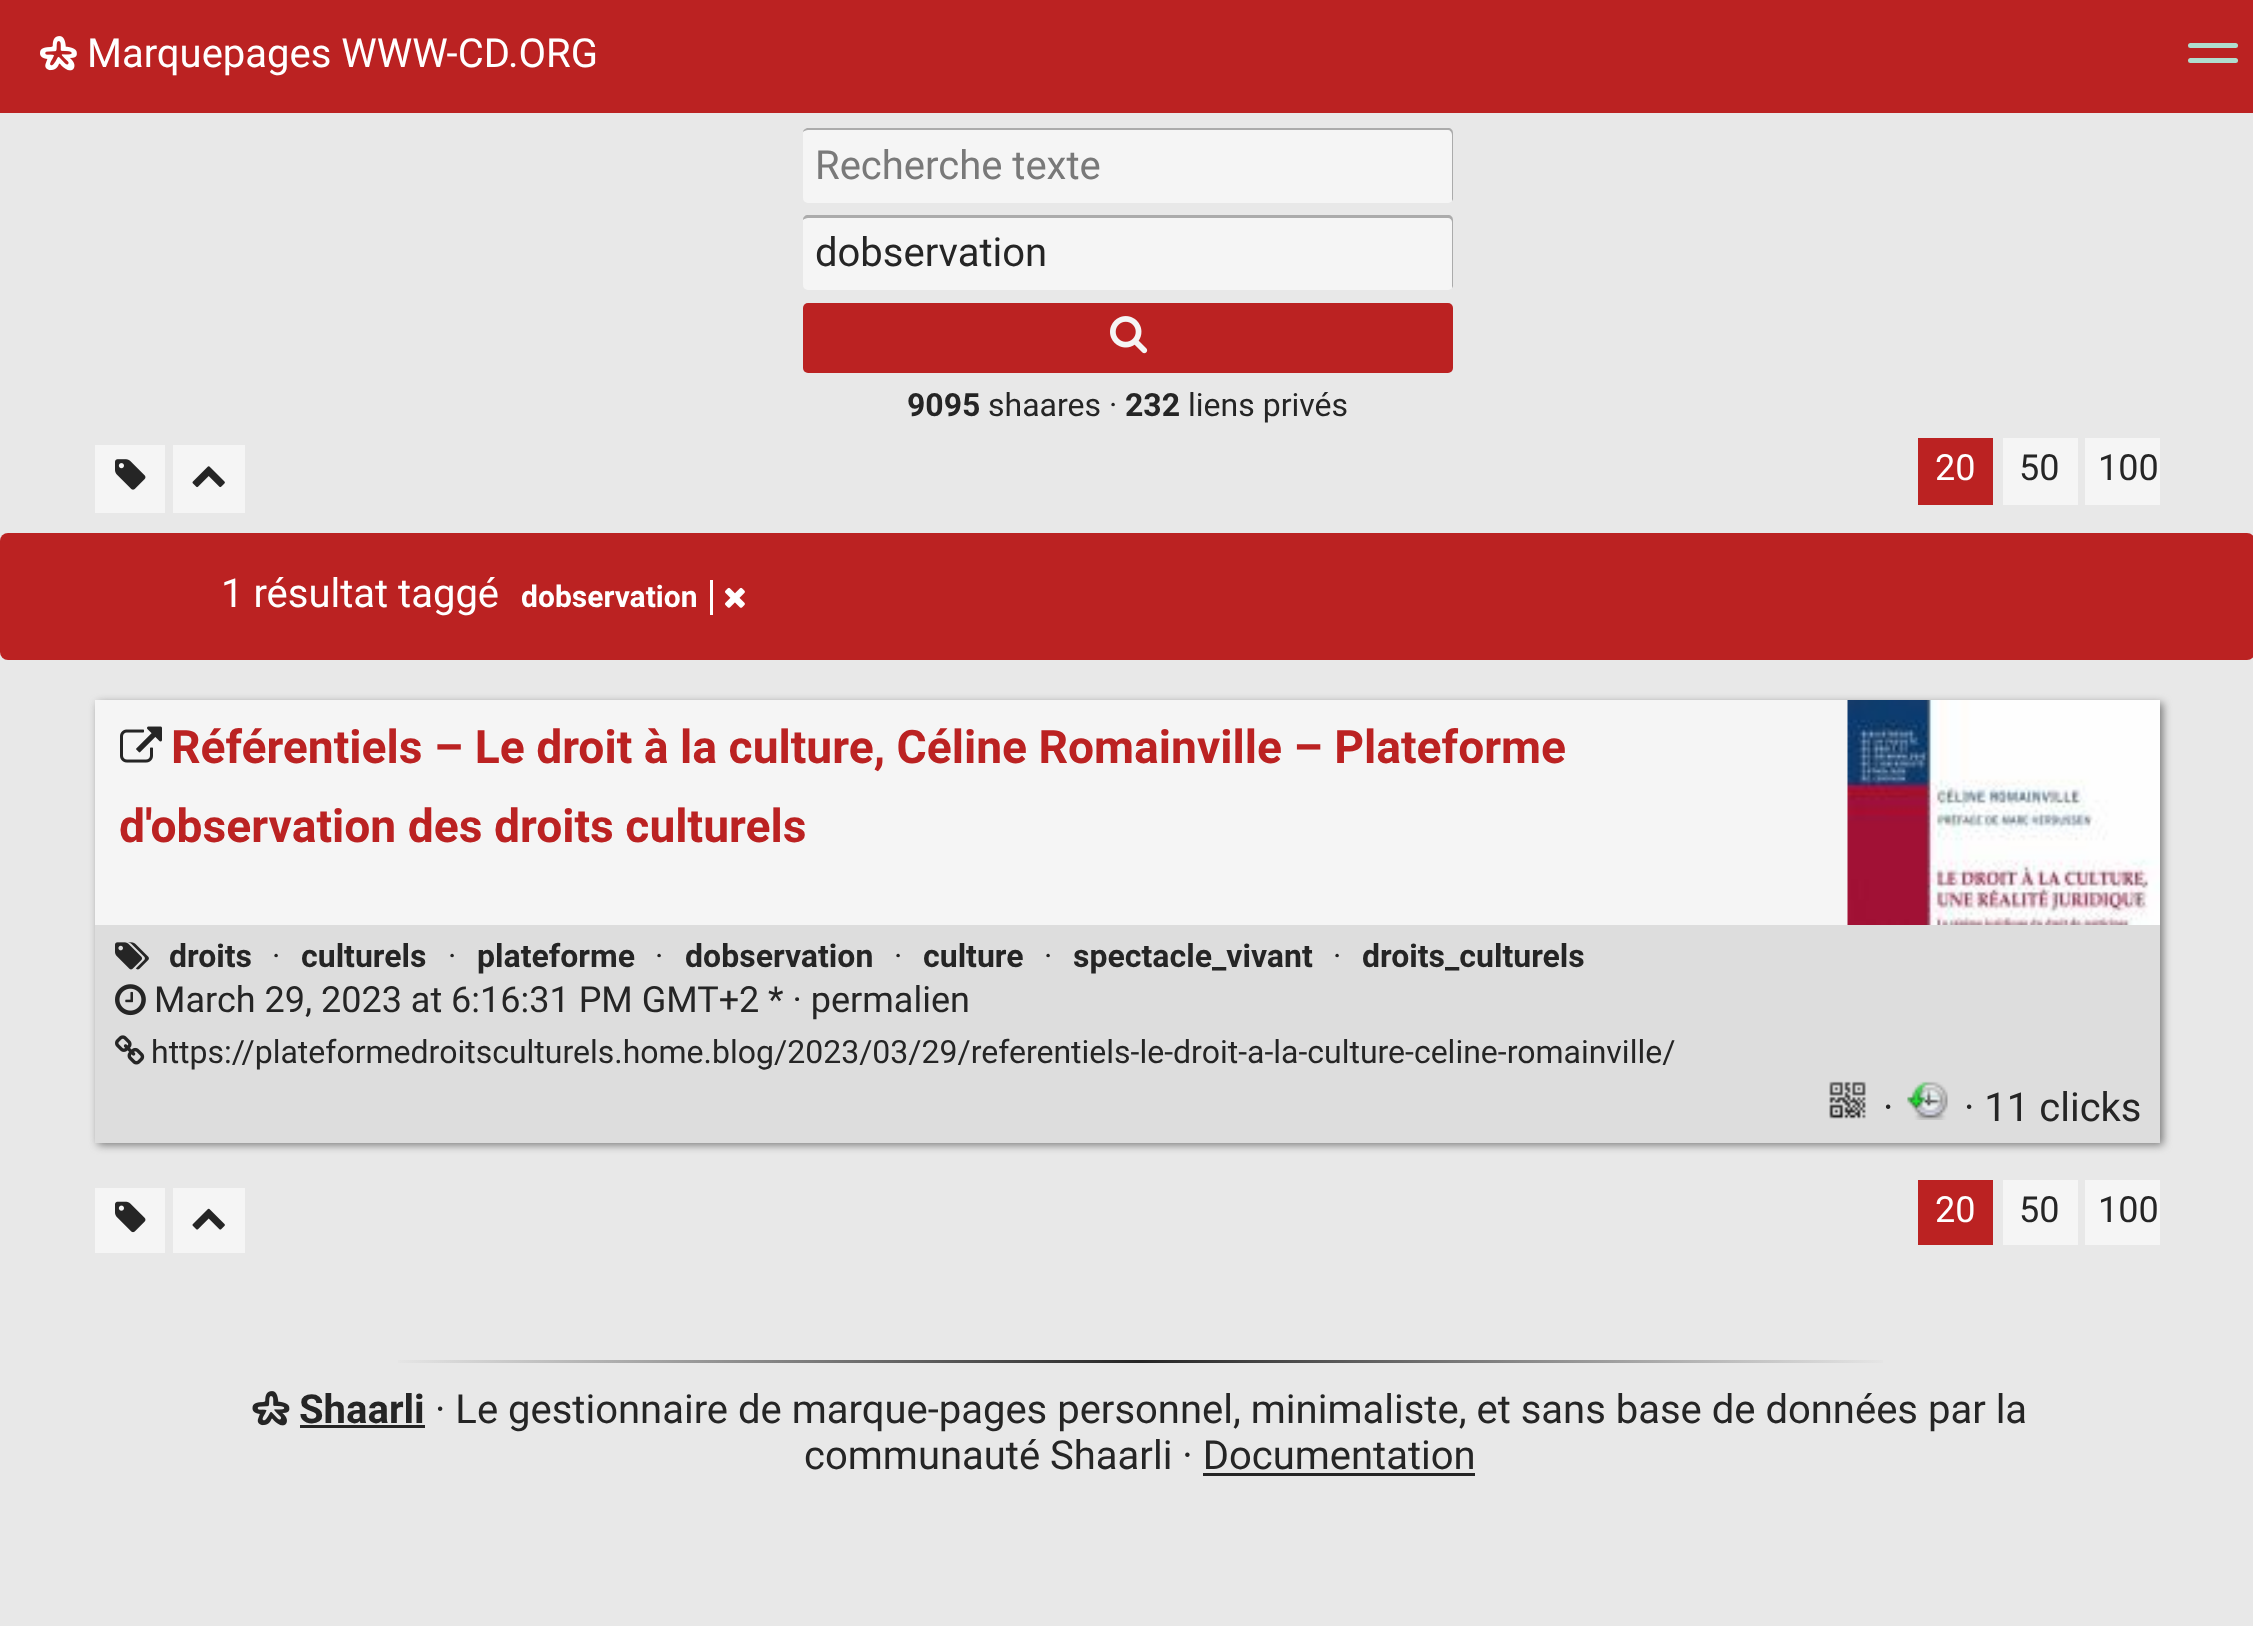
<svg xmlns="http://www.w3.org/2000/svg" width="2253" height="1626">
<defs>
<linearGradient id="g1" gradientUnits="userSpaceOnUse" x1="388" y1="1361" x2="1893" y2="1361"><stop offset="0" stop-color="#e8e8e8"/><stop offset="0.5" stop-color="#252525"/><stop offset="1" stop-color="#e8e8e8"/></linearGradient>
</defs>
<rect width="100%" height="100%" fill="#e8e8e8"/>
<rect width="2253" height="113" fill="#b22"/>
<image x="40" y="36" width="37" height="35" href="media/1.png"/>
<text x="87" y="67" style="font-family:Roboto;font-size:40px;fill:#fff">Marquepages WWW-CD.ORG</text>
<rect x="2188" y="43" width="50" height="5" rx="2.5" fill="#b0ddce"/>
<rect x="2188" y="58" width="50" height="5" rx="2.5" fill="#b0ddce"/>
<rect x="803" y="128" width="650" height="75" rx="5" fill="#f5f5f5"/>
<path d="M808 130h640c2 0 4 2 4 5v66c1-1 1-2 1-3v-65c0-3-2-5-5-5h-640c-2 0-5 2-5 4c1-1 3-2 5-2z" fill="#0000004d"/>
<text x="815" y="179" style="font-family:Roboto;font-size:40px;fill:#797979">Recherche texte</text>
<rect x="803" y="215" width="650" height="75" rx="5" fill="#f5f5f5"/>
<path d="M808 218h640c2 0 4 2 4 4v66c1-1 1-2 1-3v-65c0-3-2-5-5-5h-640c-3 0-5 2-5 5c1-1 3-2 5-2z" fill="#0000004d"/>
<text x="815" y="266" style="font-family:Roboto;font-size:40px;fill:#252525">dobservation</text>
<rect x="803" y="303" width="650" height="70" rx="5" fill="#b22"/>
<image x="1110" y="316" width="38" height="38" href="media/2.png"/>
<text x="907" y="416" style="font-family:Roboto;font-size:32px;font-weight:bold;fill:#252525">9095</text>
<text x="988" y="416" style="font-family:Roboto;font-size:32px;fill:#252525">shaares ·</text>
<text x="1125" y="416" style="font-family:Roboto;font-size:32px;font-weight:bold;fill:#252525">232</text>
<text x="1188" y="416" style="font-family:Roboto;font-size:32px;fill:#252525">liens privés</text>
<rect x="95" y="445" width="70" height="68" fill="#f5f5f5"/>
<image x="115" y="459" width="31" height="31" href="media/3.png"/>
<rect x="173" y="445" width="72" height="68" fill="#f5f5f5"/>
<image x="192" y="466" width="33" height="22" href="media/4.png"/>
<rect x="1918" y="438" width="75" height="67" fill="#b22"/>
<text x="1935" y="480" style="font-family:Roboto;font-size:36px;fill:#fff">20</text>
<rect x="2003" y="438" width="75" height="67" fill="#f5f5f5"/>
<text x="2019" y="480" style="font-family:Roboto;font-size:36px;fill:#252525">50</text>
<rect x="2085" y="438" width="75" height="67" fill="#f5f5f5"/>
<text x="2098" y="480" style="font-family:Roboto;font-size:36px;fill:#252525">100</text>
<rect y="533" width="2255" height="127" rx="8" fill="#b22"/>
<text x="221" y="607" style="font-family:Roboto;font-size:40px;fill:#fff">1 résultat taggé</text>
<text x="521" y="607" style="font-family:Roboto;font-size:30px;font-weight:bold;fill:#fff">dobservation</text>
<rect x="710" y="580" width="3" height="35" fill="#fff"/>
<image x="725" y="587" width="20" height="21" href="media/5.png"/>
<rect x="98" y="703" width="2065" height="442" fill="#797979" filter="blur(4px)"/>
<rect x="95" y="700" width="1753" height="225" fill="#f5f5f5"/>
<image x="120" y="726" width="42" height="37" href="media/6.png"/>
<text x="171" y="763" style="font-family:Roboto;font-size:46.2px;font-weight:bold;fill:#b22">Référentiels – Le droit à la culture, Céline Romainville – Plateforme</text>
<text x="119" y="842" style="font-family:Roboto;font-size:46.2px;font-weight:bold;fill:#b22">d'observation des droits culturels</text>
<image x="1847" y="700" width="313" height="225" href="media/7.png"/>
<rect x="95" y="925" width="2065" height="218" fill="#ddd"/>
<image x="115" y="942" width="34" height="28" href="media/8.png"/>
<text x="169" y="967" style="font-family:Roboto;font-size:32px;font-weight:bold;fill:#252525">droits</text>
<text x="272" y="967" style="font-family:Roboto;font-size:32px;fill:#252525">·</text>
<text x="301" y="967" style="font-family:Roboto;font-size:32px;font-weight:bold;fill:#252525">culturels</text>
<text x="448" y="967" style="font-family:Roboto;font-size:32px;fill:#252525">·</text>
<text x="477" y="967" style="font-family:Roboto;font-size:32px;font-weight:bold;fill:#252525">plateforme</text>
<text x="655" y="967" style="font-family:Roboto;font-size:32px;fill:#252525">·</text>
<text x="685" y="967" style="font-family:Roboto;font-size:32px;font-weight:bold;fill:#252525">dobservation</text>
<text x="894" y="967" style="font-family:Roboto;font-size:32px;fill:#252525">·</text>
<text x="923" y="967" style="font-family:Roboto;font-size:32px;font-weight:bold;fill:#252525">culture</text>
<text x="1044" y="967" style="font-family:Roboto;font-size:32px;fill:#252525">·</text>
<text x="1073" y="967" style="font-family:Roboto;font-size:32px;font-weight:bold;fill:#252525">spectacle_vivant</text>
<text x="1333" y="967" style="font-family:Roboto;font-size:32px;fill:#252525">·</text>
<text x="1362" y="967" style="font-family:Roboto;font-size:32px;font-weight:bold;fill:#252525">droits_culturels</text>
<image x="115" y="984" width="31" height="32" href="media/9.png"/>
<text x="154" y="1012" style="font-family:Roboto;font-size:36px;fill:#252525">March 29, 2023 at 6:16:31 PM GMT+2</text>
<text x="768" y="1012" style="font-family:Roboto;font-size:36px;fill:#252525">* · permalien</text>
<image x="115" y="1035" width="30" height="30" href="media/10.png"/>
<text x="151" y="1063" style="font-family:Roboto;font-size:32px;fill:#252525">https://plateformedroitsculturels.home.blog/2023/03/29/referentiels-le-droit-a-la-culture-celine-romainville/</text>
<image x="1829" y="1081" width="37" height="38" href="media/11.png"/>
<text x="1883" y="1121" style="font-family:Roboto;font-size:40px;fill:#252525">·</text>
<image x="1907" y="1081" width="41" height="39" href="media/12.png"/>
<text x="1964" y="1121" style="font-family:Roboto;font-size:40px;fill:#252525">· 11 clicks</text>
<rect x="95" y="1188" width="70" height="65" fill="#f5f5f5"/>
<image x="115" y="1201" width="31" height="32" href="media/13.png"/>
<rect x="173" y="1188" width="72" height="65" fill="#f5f5f5"/>
<image x="192" y="1208" width="33" height="22" href="media/14.png"/>
<rect x="1918" y="1180" width="75" height="65" fill="#b22"/>
<text x="1935" y="1222" style="font-family:Roboto;font-size:36px;fill:#fff">20</text>
<rect x="2003" y="1180" width="75" height="65" fill="#f5f5f5"/>
<text x="2019" y="1222" style="font-family:Roboto;font-size:36px;fill:#252525">50</text>
<rect x="2085" y="1180" width="75" height="65" fill="#f5f5f5"/>
<text x="2098" y="1222" style="font-family:Roboto;font-size:36px;fill:#252525">100</text>
<rect x="398" y="1360" width="1485" height="3" fill="url(#g1)"/>
<image x="252" y="1391" width="38" height="35" href="media/15.png"/>
<text x="299" y="1423" style="font-family:Roboto;font-size:40px;font-weight:bold;fill:#252525">Shaarli</text>
<rect x="300" y="1425" width="125" height="3" fill="#252525"/>
<text x="435" y="1423" style="font-family:Roboto;font-size:40px;fill:#252525">· Le gestionnaire de marque-pages personnel, minimaliste, et sans base de données par la</text>
<text x="804" y="1469" style="font-family:Roboto;font-size:40px;fill:#252525">communauté Shaarli · Documentation</text>
<rect x="1203" y="1473" width="272" height="3" fill="#252525"/>
</svg>
